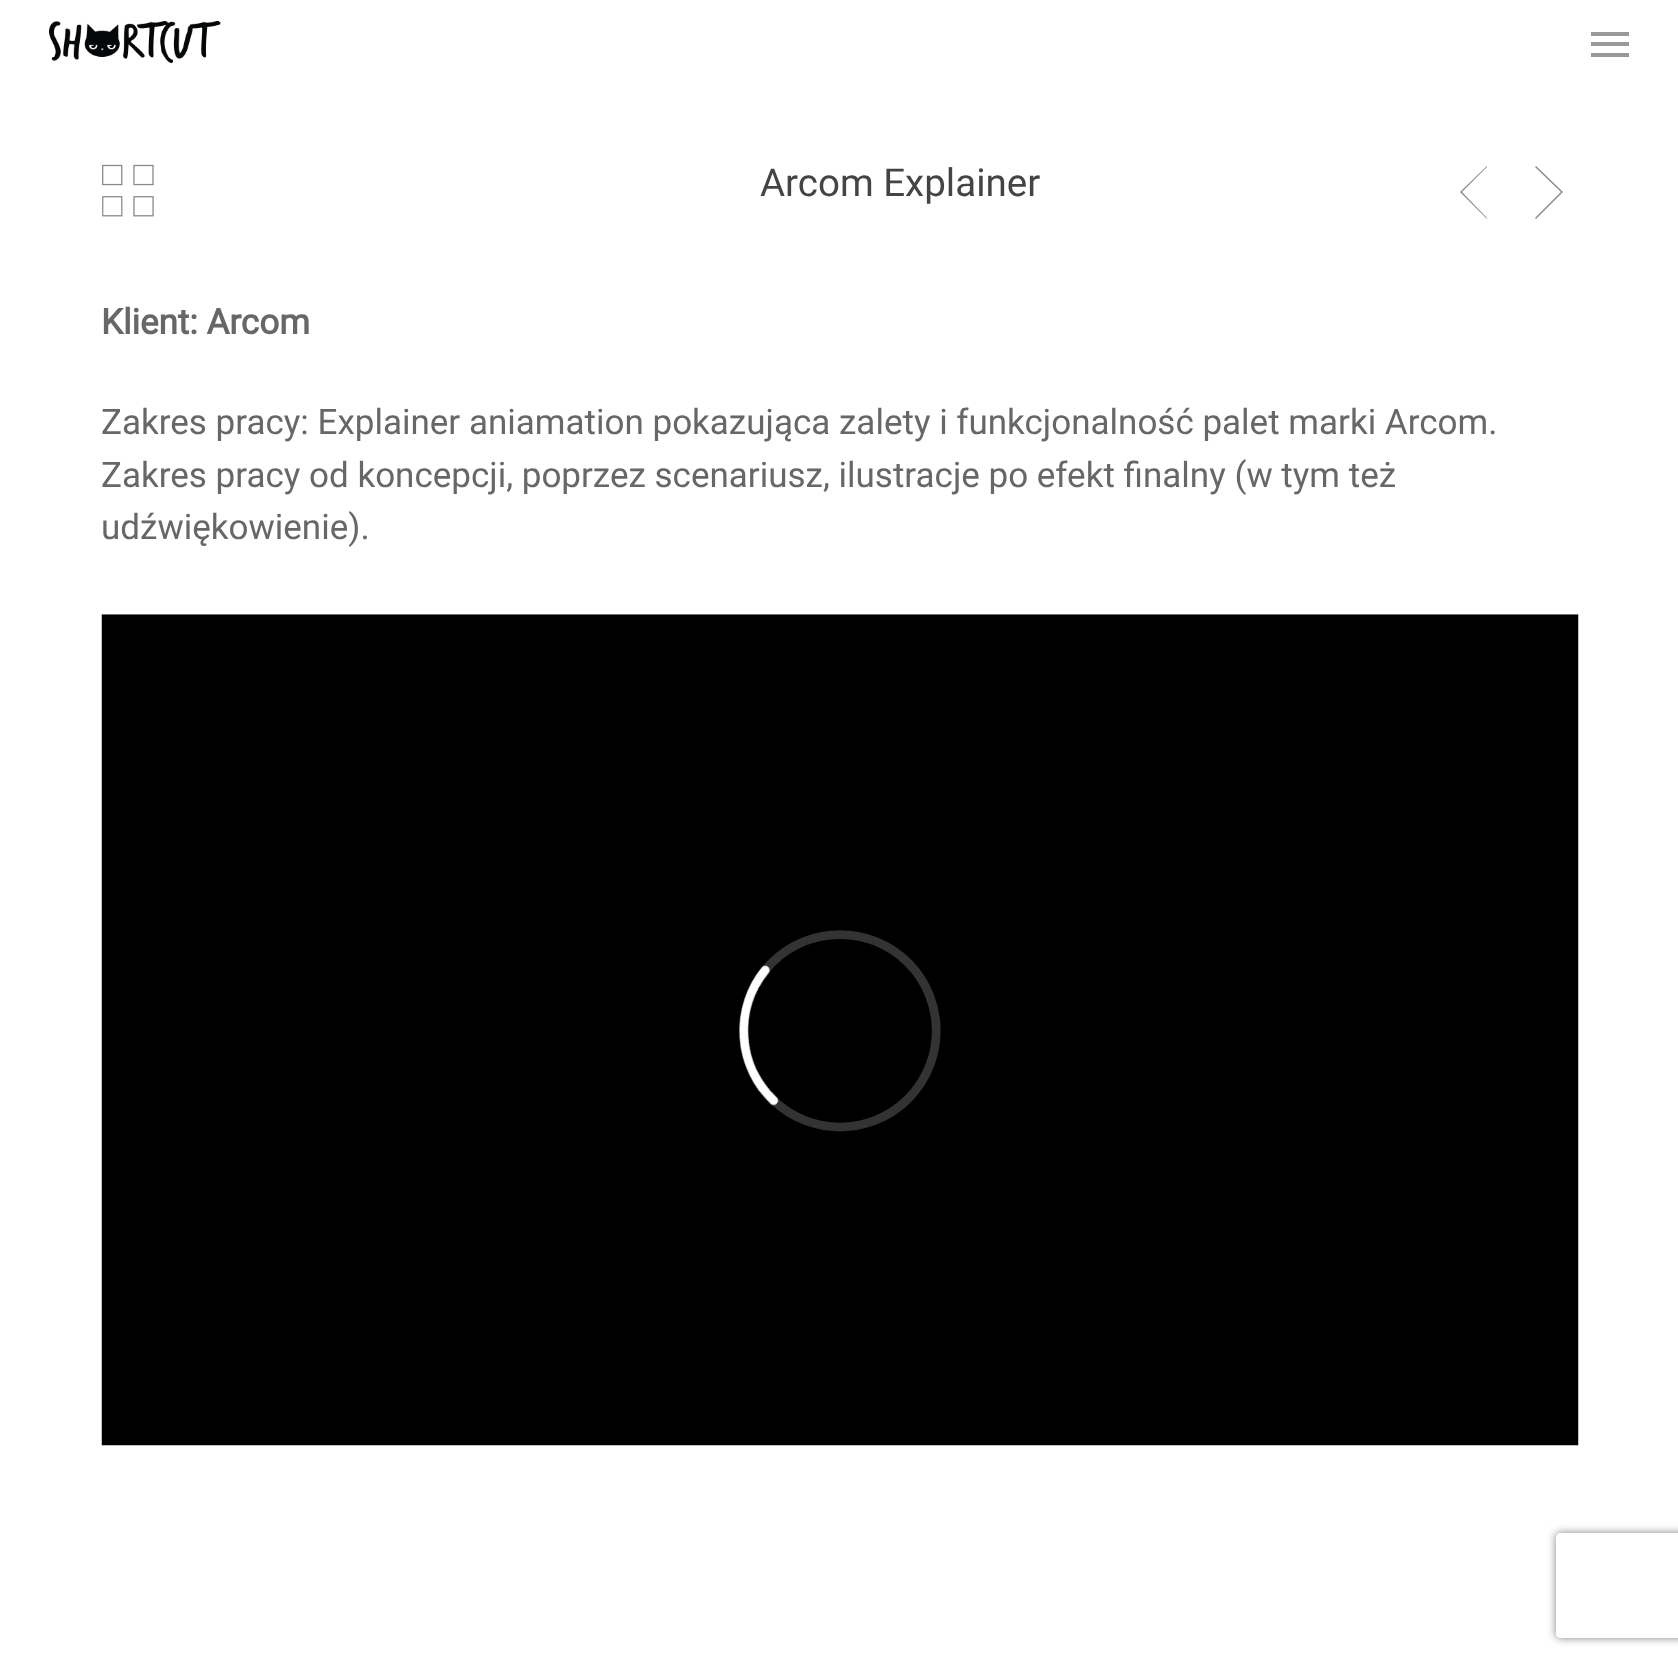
<svg xmlns="http://www.w3.org/2000/svg" width="1678" height="1662">
<defs>
<clipPath id="clip1"><path d="M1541 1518h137v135h-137zm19 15h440c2 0 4 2 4 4v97c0 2-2 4-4 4h-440c-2 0-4-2-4-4v-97c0-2 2-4 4-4z" clip-rule="evenodd"/></clipPath>
</defs>
<rect width="100%" height="100%" fill="#fff"/>
<image x="49" y="21" width="172" height="42" href="media/1.png"/>
<rect x="1591" y="32" width="38" height="4" fill="#999"/>
<rect x="1591" y="53" width="38" height="4" fill="#999"/>
<rect x="1591" y="42" width="38" height="4" fill="#999"/>
<image x="102" y="164" width="52" height="53" href="media/2.png"/>
<path d="M1487 167v-1l-27 26l27 27v-1l-25-26z" fill="#888"/>
<path d="M1535 167l1-1l27 26l-27 27l-1-1l26-26z" fill="#888"/>
<text x="760" y="196" style="font-family:Roboto;font-size:38.5px;fill:#444">Arcom Explainer</text>
<text x="101" y="334" style="font-family:Roboto;font-size:35px;font-weight:bold;fill:#676767">Klient: Arcom</text>
<text x="101" y="434" style="font-family:Roboto;font-size:35px;fill:#676767">Zakres pracy: Explainer aniamation pokazująca zalety i funkcjonalność palet marki Arcom.</text>
<text x="101" y="487" style="font-family:Roboto;font-size:35px;fill:#676767">Zakres pracy od koncepcji, poprzez scenariusz, ilustracje po efekt finalny (w tym też</text>
<text x="101" y="539" style="font-family:Roboto;font-size:35px;fill:#676767">udźwiękowienie).</text>
<image x="101" y="614" width="1478" height="832" href="media/3.png"/>
<g clip-path="url(#clip1)">
<rect x="1556" y="1533" width="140" height="105" rx="4" fill="#808080" filter="blur(4.5px)"/>
</g>
</svg>
